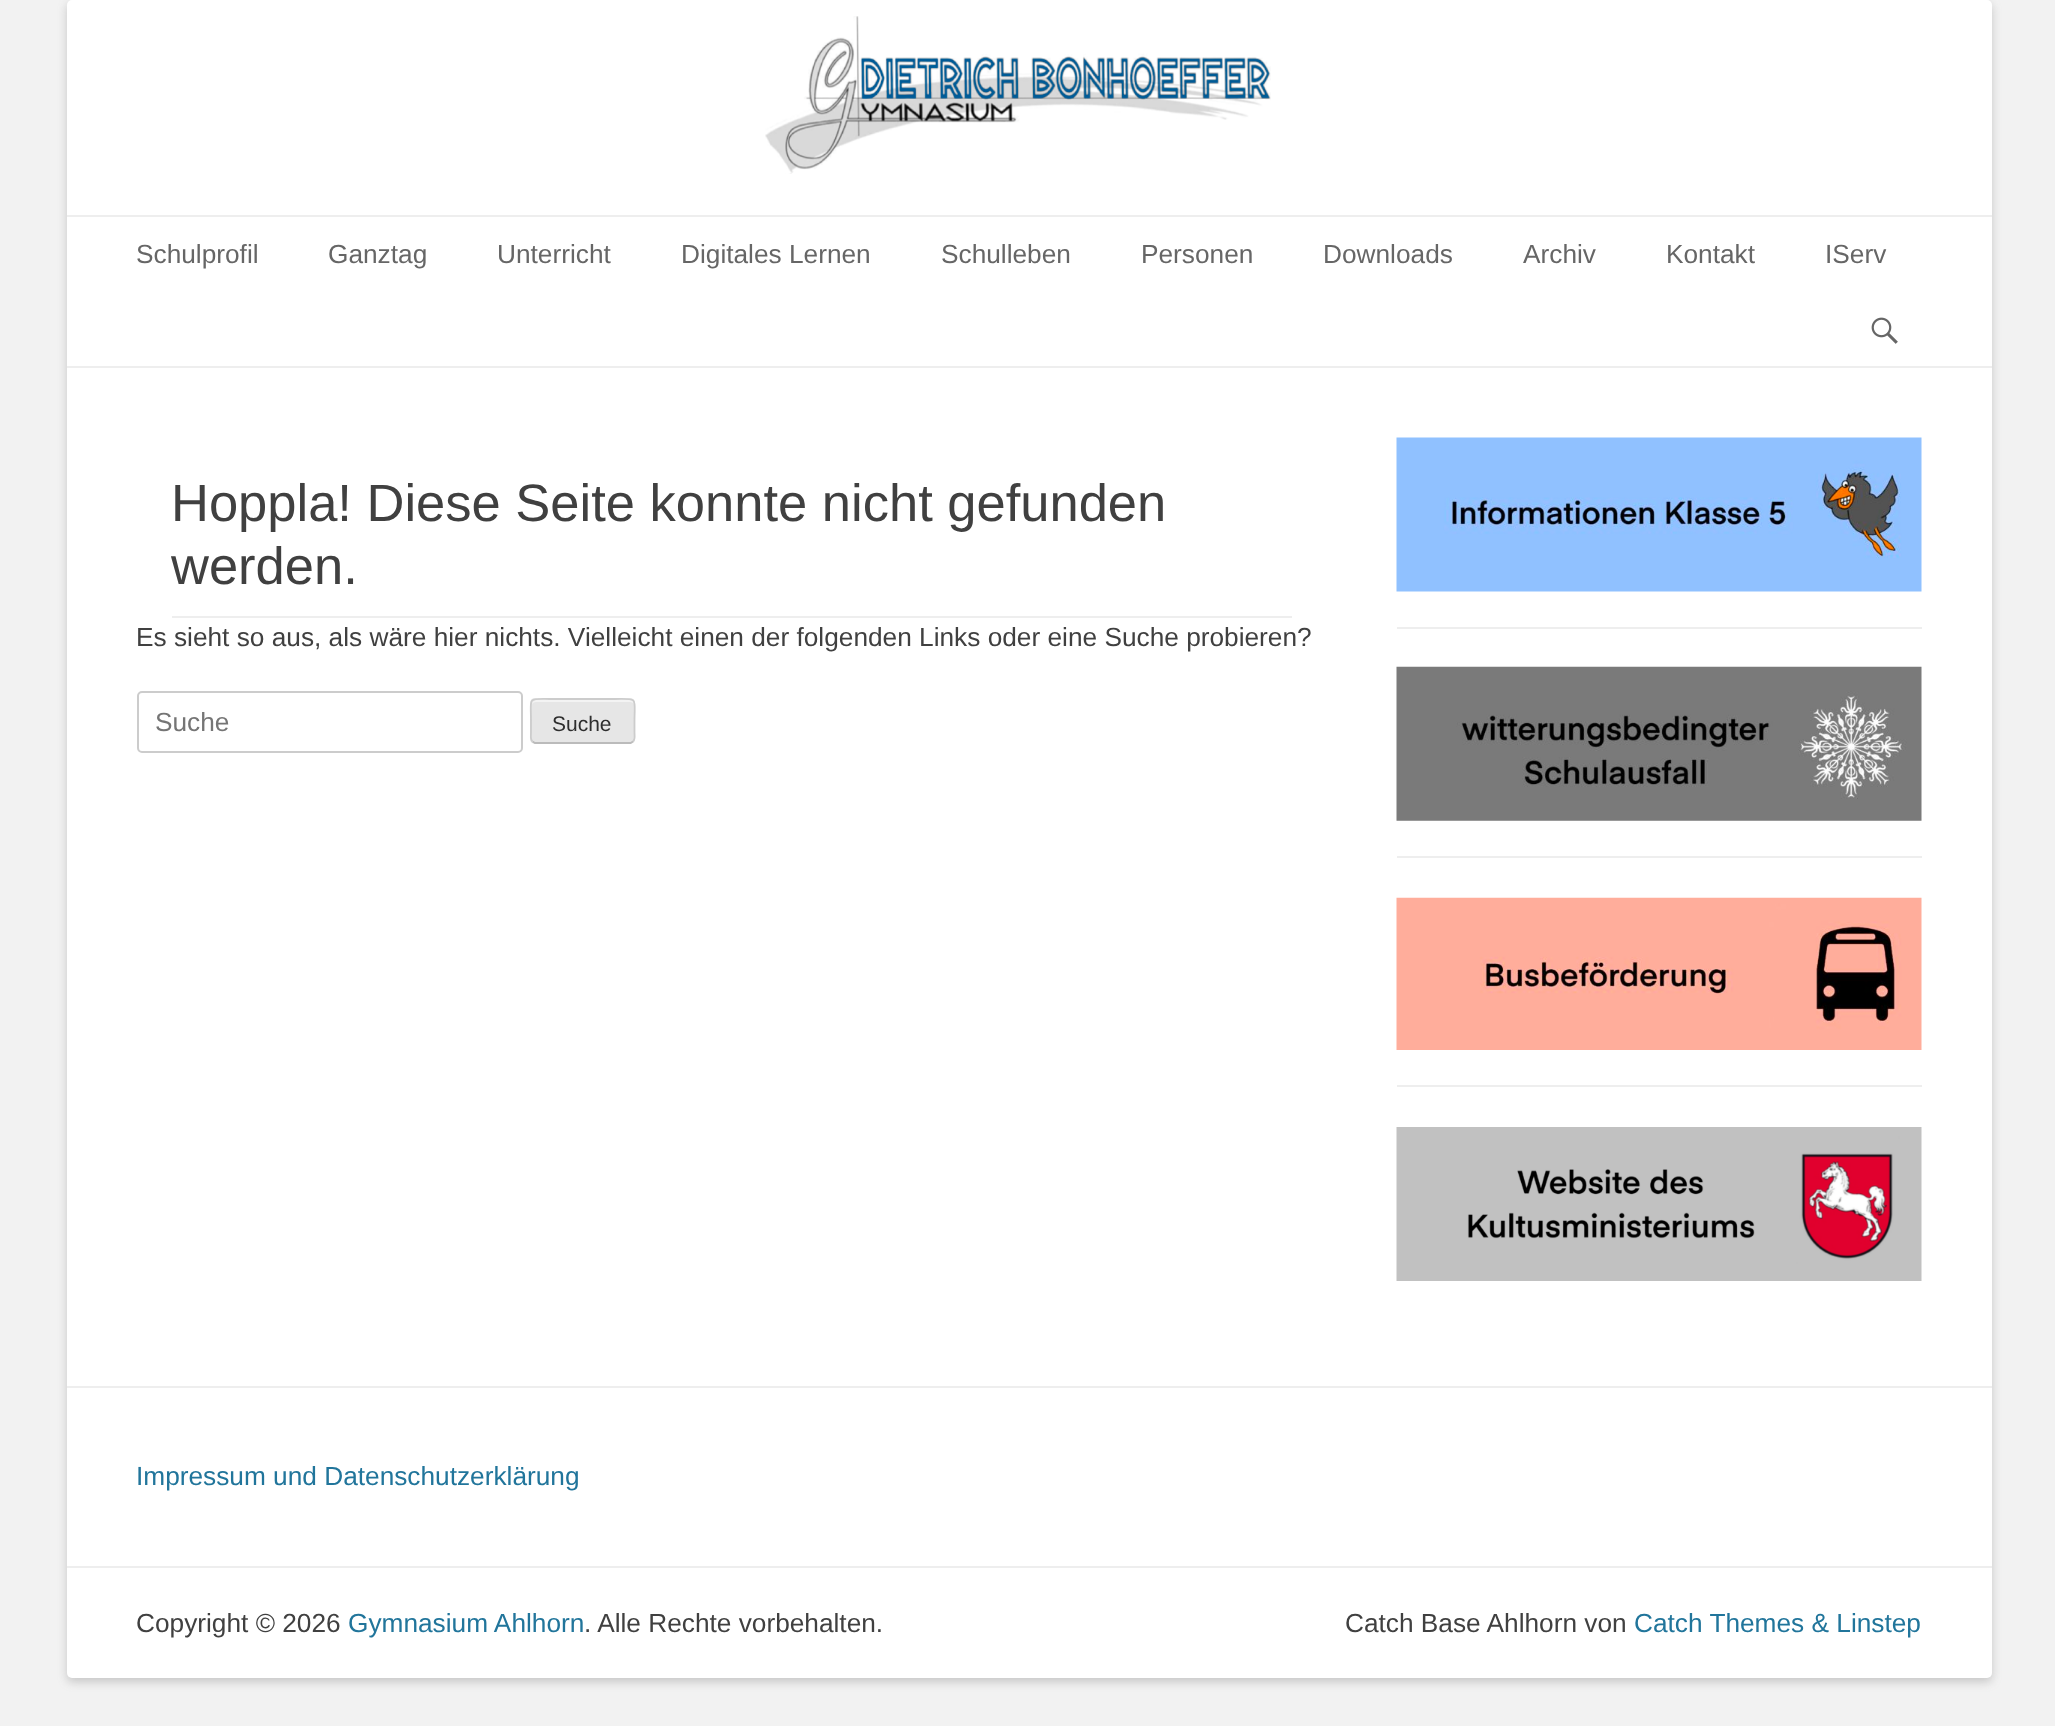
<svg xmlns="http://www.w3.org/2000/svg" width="2055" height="1726">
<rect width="100%" height="100%" fill="#f2f2f2"/>
<rect x="67" y="4" width="1925" height="1678" rx="5" fill="#6464644d" filter="blur(5px)"/>
<rect x="67" width="1925" height="1678" rx="5" fill="#fff"/>
<image x="765" y="16" width="506" height="158" href="media/1.png"/>
<rect x="67" y="215" width="1925" height="2" fill="#eee"/>
<rect x="67" y="366" width="1925" height="2" fill="#eee"/>
<text x="136" y="263" style="font-family:Liberation Sans;font-size:26.25px;fill:#666">Schulprofil</text>
<text x="328" y="263" style="font-family:Liberation Sans;font-size:26.25px;fill:#666">Ganztag</text>
<text x="497" y="263" style="font-family:Liberation Sans;font-size:26.25px;fill:#666">Unterricht</text>
<text x="681" y="263" style="font-family:Liberation Sans;font-size:26.25px;fill:#666">Digitales Lernen</text>
<text x="941" y="263" style="font-family:Liberation Sans;font-size:26.25px;fill:#666">Schulleben</text>
<text x="1141" y="263" style="font-family:Liberation Sans;font-size:26.25px;fill:#666">Personen</text>
<text x="1323" y="263" style="font-family:Liberation Sans;font-size:26.25px;fill:#666">Downloads</text>
<text x="1523" y="263" style="font-family:Liberation Sans;font-size:26.25px;fill:#666">Archiv</text>
<text x="1666" y="263" style="font-family:Liberation Sans;font-size:26.25px;fill:#666">Kontakt</text>
<text x="1825" y="263" style="font-family:Liberation Sans;font-size:26.25px;fill:#666">IServ</text>
<image x="1871" y="317" width="27" height="27" href="media/2.png"/>
<rect x="172" y="616" width="1120" height="2" fill="#eee"/>
<text x="171" y="521" style="font-family:Liberation Sans;font-size:52.5px;fill:#404040">Hoppla! Diese Seite konnte nicht gefunden</text>
<text x="171" y="584" style="font-family:Liberation Sans;font-size:52.5px;fill:#404040">werden.</text>
<text x="136" y="646" style="font-family:Liberation Sans;font-size:26.25px;fill:#404040">Es sieht so aus, als wäre hier nichts. Vielleicht einen der folgenden Links oder eine Suche probieren?</text>
<rect x="138" y="692" width="384" height="60" rx="4" fill="none" stroke="#ccc" stroke-width="2"/>
<text x="155" y="731" style="font-family:Liberation Sans;font-size:26.25px;fill:#757575">Suche</text>
<rect x="530" y="698" width="105" height="46" rx="5" fill="#e6e6e6"/>
<path d="M536 702h94c2 0 4 1 4 3c0-9-16-5-20-5h-62c-4 0-20-4-20 5c0-2 2-3 4-3z" fill="#f3f3f3"/>
<path d="M633 741.5l-2.5 1.5h-95.5l-2.5-1.5" fill="none" stroke="#bbb" stroke-width="1.8"/>
<path d="M532.5 741.5c-2.5-2-1.5-6.5-1.5-9v-11.5c0-24.5-4.5-22 20-22h63c25 0 20.5-2.5 20.5 22v11.5c0 2.5 1 7-1.5 9" fill="none" stroke="#ccc" stroke-width="1.8"/>
<text x="552" y="731" style="font-family:Liberation Sans;font-size:21px;fill:#2e2e2e">Suche</text>
<image x="1396" y="437" width="526" height="155" href="media/3.png"/>
<rect x="1397" y="627" width="525" height="2" fill="#eee"/>
<image x="1396" y="666" width="526" height="155" href="media/4.png"/>
<rect x="1397" y="856" width="525" height="2" fill="#eee"/>
<image x="1396" y="897" width="526" height="153" href="media/5.png"/>
<rect x="1397" y="1085" width="525" height="2" fill="#eee"/>
<image x="1396" y="1127" width="526" height="154" href="media/6.png"/>
<rect x="67" y="1386" width="1925" height="2" fill="#eee"/>
<text x="136" y="1485" style="font-family:Liberation Sans;font-size:26.25px;fill:#21759b">Impressum und Datenschutzerklärung</text>
<rect x="67" y="1566" width="1925" height="2" fill="#eee"/>
<text x="136" y="1632" style="font-family:Liberation Sans;font-size:26.25px;fill:#404040">Copyright © 2026</text>
<text x="348" y="1632" style="font-family:Liberation Sans;font-size:26.25px;fill:#21759b">Gymnasium Ahlhorn</text>
<text x="584" y="1632" style="font-family:Liberation Sans;font-size:26.25px;fill:#404040">. Alle Rechte vorbehalten.</text>
<text x="1345" y="1632" style="font-family:Liberation Sans;font-size:26.25px;fill:#404040">Catch Base Ahlhorn von</text>
<text x="1634" y="1632" style="font-family:Liberation Sans;font-size:26.25px;fill:#21759b">Catch Themes &amp; Linstep</text>
</svg>
